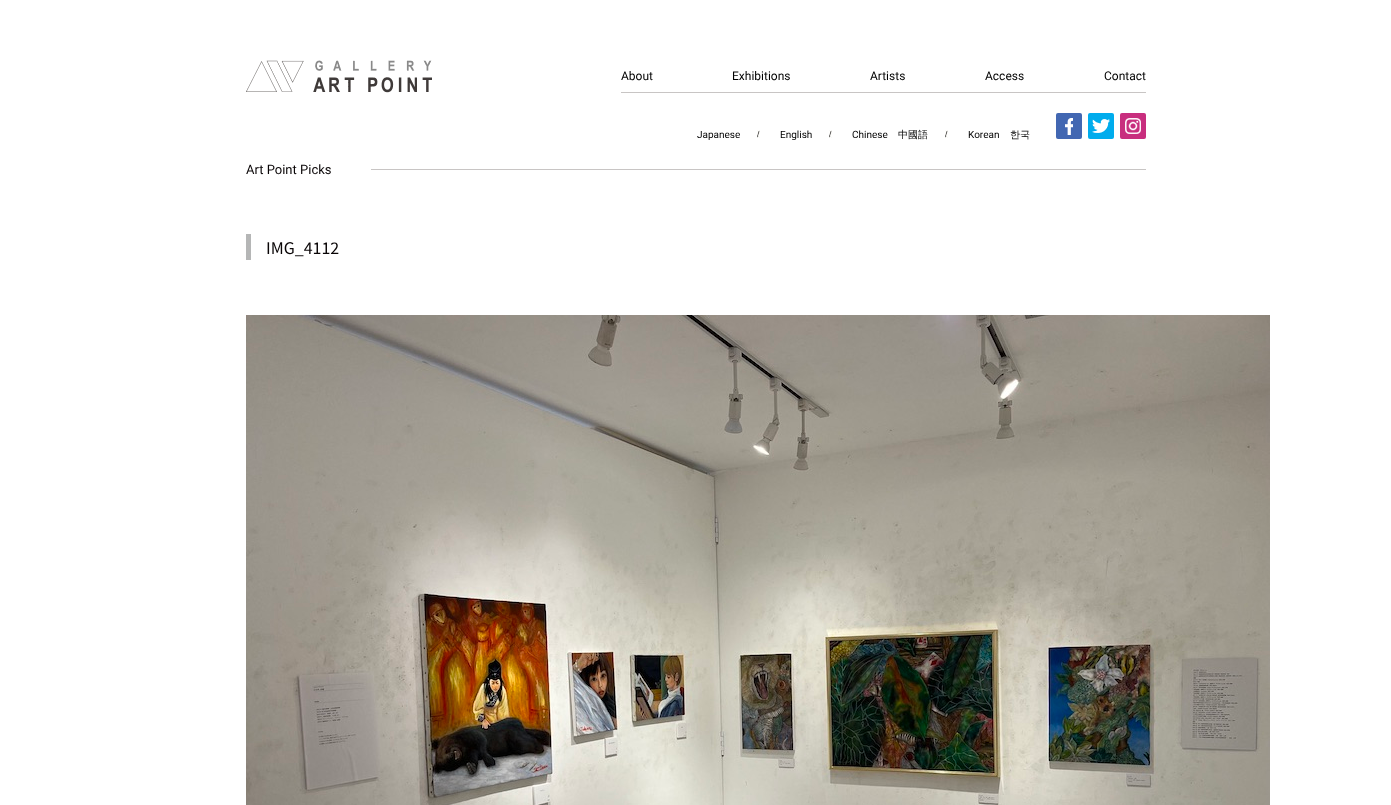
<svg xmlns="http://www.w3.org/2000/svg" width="1391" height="805">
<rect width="100%" height="100%" fill="#fff"/>
<image x="246" y="60" width="186" height="33" href="media/1.png"/>
<rect x="621" y="92" width="525" height="1" fill="#c8c5c4"/>
<text x="621" y="80" style="font-family:Roboto;font-size:12px;fill:#000">About</text>
<text x="732" y="80" style="font-family:Roboto;font-size:12px;fill:#000">Exhibitions</text>
<text x="870" y="80" style="font-family:Roboto;font-size:12px;fill:#000">Artists</text>
<text x="985" y="80" style="font-family:Roboto;font-size:12px;fill:#000">Access</text>
<text x="1104" y="80" style="font-family:Roboto;font-size:12px;fill:#000">Contact</text>
<image x="757" y="130" width="3" height="8" href="media/2.png"/>
<text x="697" y="138" style="font-family:Roboto;font-size:10px;fill:#000">Japanese</text>
<image x="829" y="130" width="3" height="8" href="media/2.png"/>
<text x="780" y="138" style="font-family:Roboto;font-size:10px;fill:#000">English</text>
<image x="945" y="130" width="3" height="8" href="media/2.png"/>
<text x="852" y="138" style="font-family:Roboto;font-size:10px;fill:#000">Chinese</text>
<text x="898" y="138" style="font-family:WenQuanYi Zen Hei;font-size:10px;font-weight:500;fill:#000">中國語</text>
<text x="968" y="138" style="font-family:Roboto;font-size:10px;fill:#000">Korean</text>
<text x="1010" y="138" style="font-family:WenQuanYi Zen Hei;font-size:10px;font-weight:500;fill:#000">한국</text>
<rect x="1056" y="113" width="26" height="26" rx="2" fill="#4267b2"/>
<image x="1065" y="118" width="8" height="17" href="media/3.png"/>
<rect x="1088" y="113" width="26" height="26" rx="2" fill="#00aced"/>
<image x="1092" y="119" width="18" height="14" href="media/4.png"/>
<rect x="1120" y="113" width="26" height="26" rx="2" fill="#c82e7e"/>
<image x="1125" y="118" width="16" height="16" href="media/5.png"/>
<text x="246" y="174" style="font-family:Roboto;font-size:13px;fill:#090506">Art Point Picks</text>
<rect x="371" y="169" width="775" height="1" fill="#c8c5c4"/>
<rect x="246" y="234" width="5" height="26" fill="#b5b6b6"/>
<text x="266" y="254" style="font-family:Noto Sans JP;font-size:16px;font-weight:100;fill:#090506">IMG_4112</text>
<image x="246" y="315" width="1024" height="490" href="media/6.png"/>
</svg>
